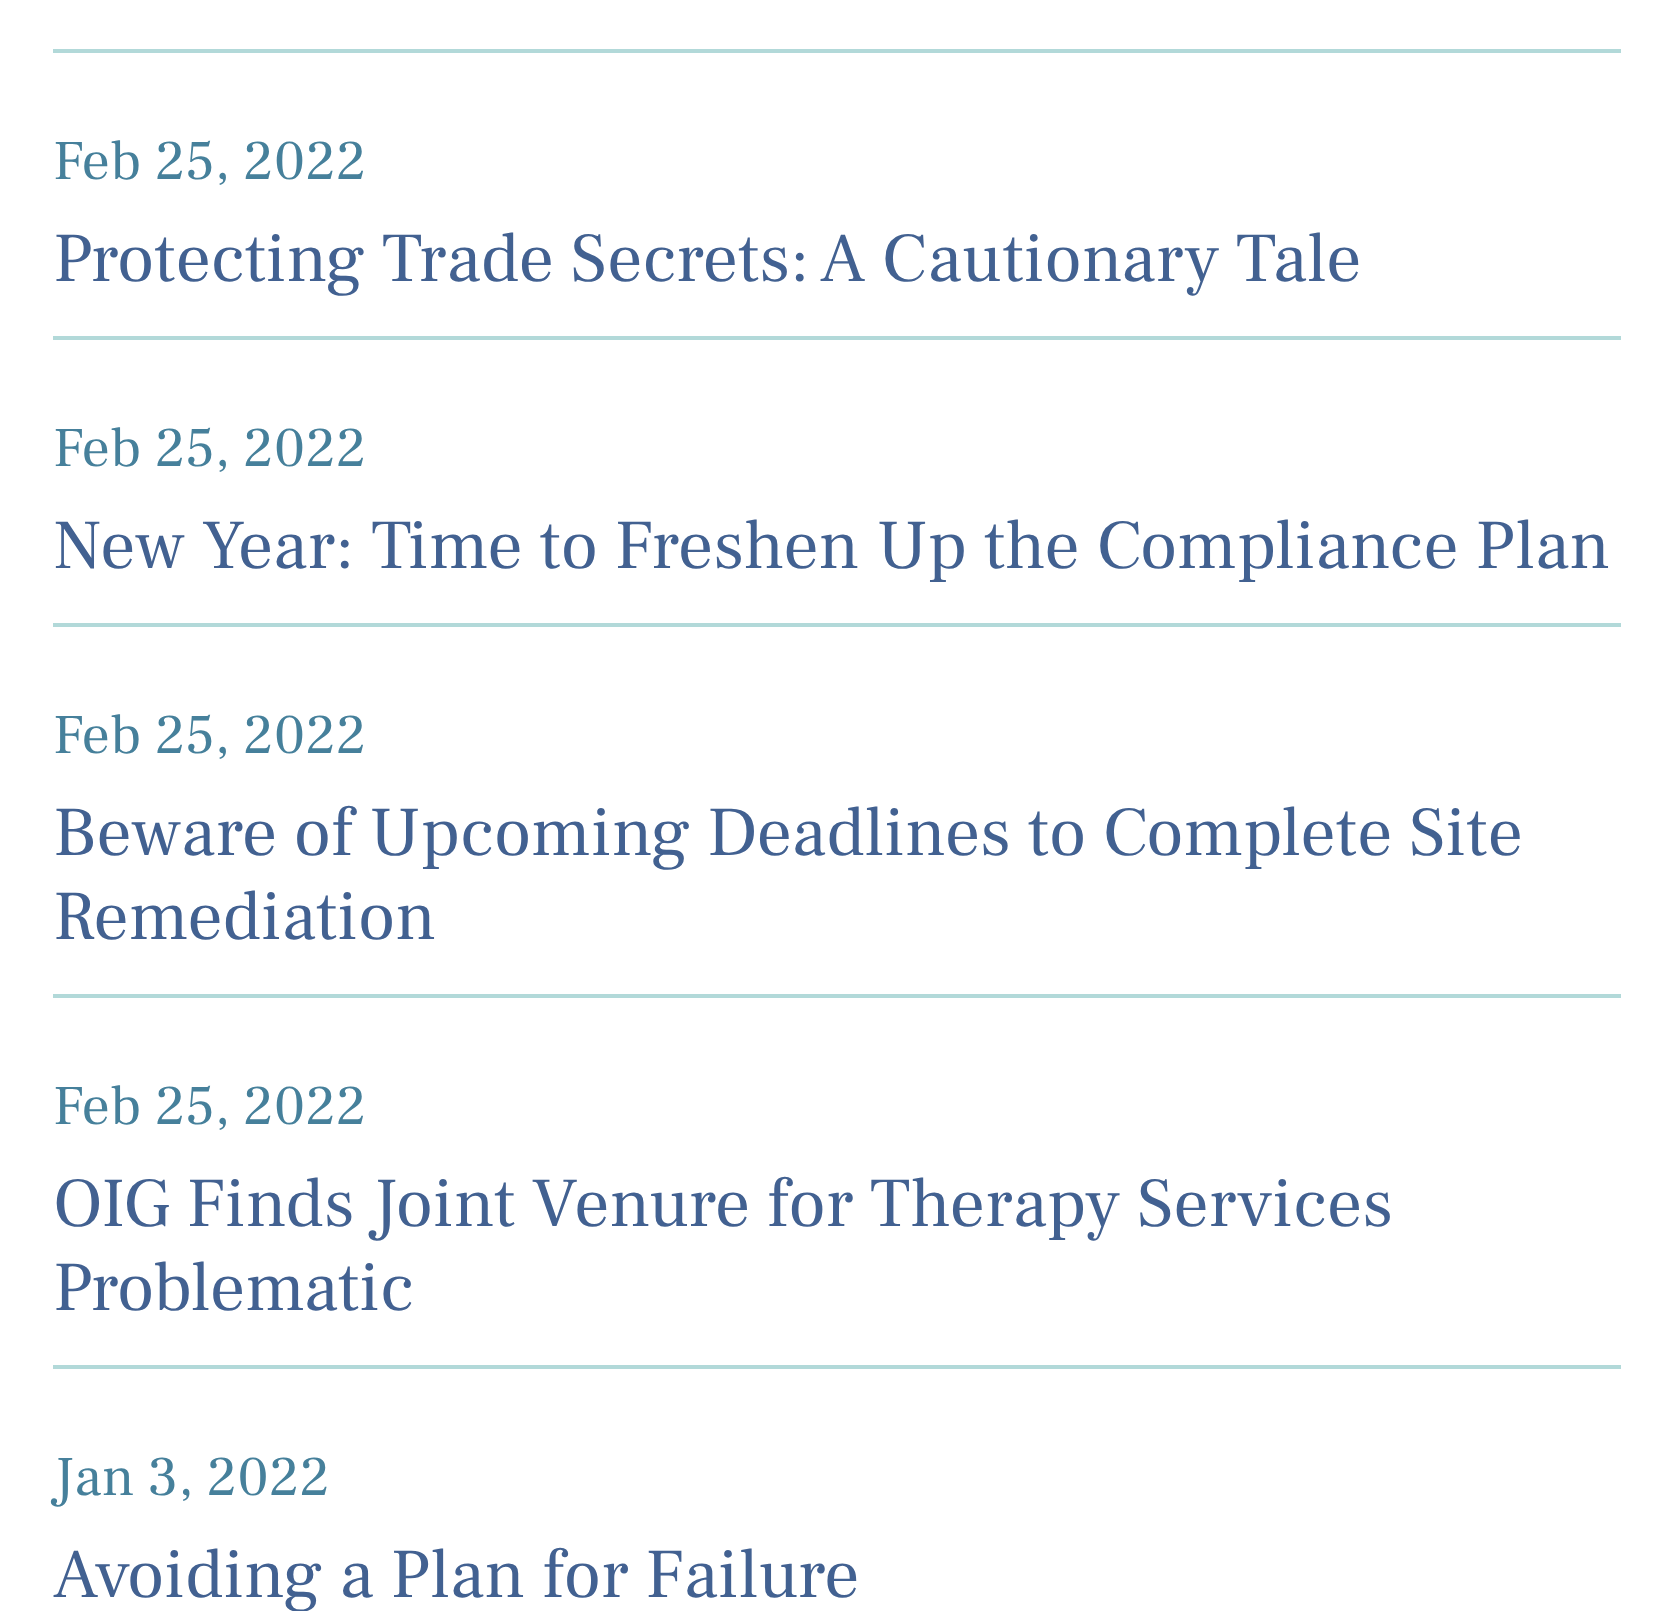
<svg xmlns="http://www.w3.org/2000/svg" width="1672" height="1611">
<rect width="100%" height="100%" fill="#fff"/>
<rect x="53" y="49" width="1568" height="4" fill="#b2d9d9"/>
<rect x="53" y="336" width="1568" height="4" fill="#b2d9d9"/>
<text x="53" y="179" style="font-family:Frank Ruhl Libre;font-size:56px;fill:#46809b">Feb 25, 2022</text>
<text x="53" y="281" style="font-family:Frank Ruhl Libre;font-size:70px;fill:#426191">Protecting Trade Secrets: A Cautionary Tale</text>
<rect x="53" y="623" width="1568" height="4" fill="#b2d9d9"/>
<text x="53" y="466" style="font-family:Frank Ruhl Libre;font-size:56px;fill:#46809b">Feb 25, 2022</text>
<text x="53" y="568" style="font-family:Frank Ruhl Libre;font-size:70px;fill:#426191">New Year: Time to Freshen Up the Compliance Plan</text>
<rect x="53" y="994" width="1568" height="4" fill="#b2d9d9"/>
<text x="53" y="753" style="font-family:Frank Ruhl Libre;font-size:56px;fill:#46809b">Feb 25, 2022</text>
<text x="53" y="855" style="font-family:Frank Ruhl Libre;font-size:70px;fill:#426191">Beware of Upcoming Deadlines to Complete Site</text>
<text x="53" y="939" style="font-family:Frank Ruhl Libre;font-size:70px;fill:#426191">Remediation</text>
<rect x="53" y="1365" width="1568" height="4" fill="#b2d9d9"/>
<text x="53" y="1124" style="font-family:Frank Ruhl Libre;font-size:56px;fill:#46809b">Feb 25, 2022</text>
<text x="53" y="1226" style="font-family:Frank Ruhl Libre;font-size:70px;fill:#426191">OIG Finds Joint Venure for Therapy Services</text>
<text x="53" y="1310" style="font-family:Frank Ruhl Libre;font-size:70px;fill:#426191">Problematic</text>
<text x="53" y="1495" style="font-family:Frank Ruhl Libre;font-size:56px;fill:#46809b">Jan 3, 2022</text>
<text x="53" y="1597" style="font-family:Frank Ruhl Libre;font-size:70px;fill:#426191">Avoiding a Plan for Failure</text>
</svg>
